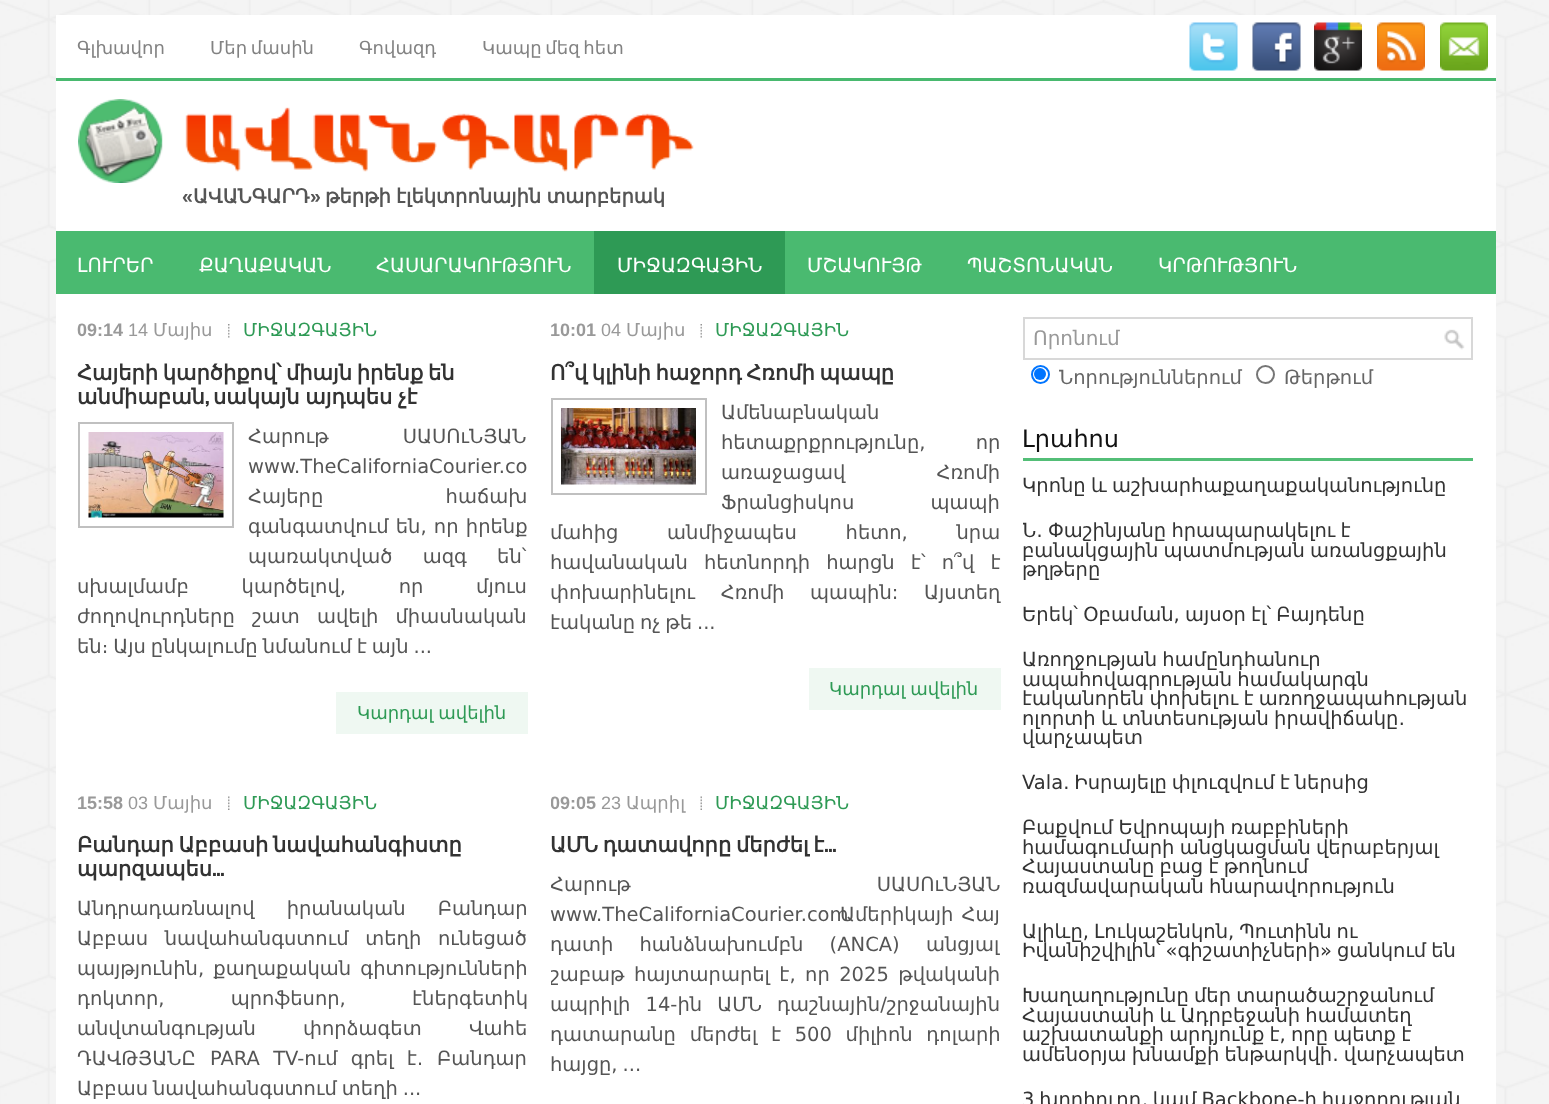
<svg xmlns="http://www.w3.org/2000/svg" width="1549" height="1104">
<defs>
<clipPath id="clip1"><rect x="551" y="789" width="450" height="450"/></clipPath>
<clipPath id="clip2"><rect x="1023" y="317" width="450" height="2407"/></clipPath>
</defs>
<rect width="100%" height="100%" fill="#fff"/>
<image x="0" y="0" width="1549" height="1104" href="media/1.png"/>
<rect x="56" y="15" width="1440" height="63" fill="#fff"/>
<rect x="56" y="78" width="1440" height="3" fill="#49b96f"/>
<image x="1189" y="22" width="49" height="49" href="media/2.png"/>
<image x="1252" y="22" width="49" height="49" href="media/3.png"/>
<image x="1314" y="22" width="48" height="49" href="media/4.png"/>
<image x="1377" y="22" width="48" height="49" href="media/5.png"/>
<image x="1440" y="22" width="48" height="49" href="media/6.png"/>
<text x="77" y="54" style="font-family:DejaVu Sans;font-size:18px;fill:#828282">Գլխավոր</text>
<text x="210" y="54" word-spacing="-2" style="font-family:DejaVu Sans;font-size:18px;fill:#828282">Մեր մասին</text>
<text x="359" y="54" style="font-family:DejaVu Sans;font-size:18px;fill:#828282">Գովազդ</text>
<text x="482" y="54" word-spacing="-2" style="font-family:DejaVu Sans;font-size:18px;fill:#828282">Կապը մեզ հետ</text>
<rect x="56" y="81" width="1440" height="150" fill="#fff"/>
<image x="78" y="99" width="616" height="84" href="media/7.png"/>
<text x="182" y="203" style="font-family:Liberation Sans;font-size:19.5px;font-weight:bold;fill:#555">«</text>
<text x="193" y="203" style="font-family:DejaVu Sans;font-size:19.5px;font-weight:bold;fill:#555">ԱՎԱՆԳԱՐԴ</text>
<text x="310" y="203" style="font-family:Liberation Sans;font-size:19.5px;font-weight:bold;fill:#555">»</text>
<text x="325" y="203" word-spacing="-1" style="font-family:DejaVu Sans;font-size:19.5px;font-weight:bold;fill:#555">թերթի էլեկտրոնային տարբերակ</text>
<rect x="56" y="231" width="1440" height="63" fill="#4aba70"/>
<text x="77" y="272" style="font-family:DejaVu Sans;font-size:19.5px;fill:#fff">ԼՈՒՐԵՐ</text>
<text x="199" y="272" style="font-family:DejaVu Sans;font-size:19.5px;fill:#fff">ՔԱՂԱՔԱԿԱՆ</text>
<text x="376" y="272" style="font-family:DejaVu Sans;font-size:19.5px;fill:#fff">ՀԱՍԱՐԱԿՈՒԹՅՈՒՆ</text>
<rect x="594" y="231" width="191" height="63" fill="#2e9a55"/>
<text x="617" y="272" style="font-family:DejaVu Sans;font-size:19.5px;fill:#fff">ՄԻՋԱԶԳԱՅԻՆ</text>
<text x="807" y="272" style="font-family:DejaVu Sans;font-size:19.5px;fill:#fff">ՄՇԱԿՈՒՅԹ</text>
<text x="967" y="272" style="font-family:DejaVu Sans;font-size:19.5px;fill:#fff">ՊԱՇՏՈՆԱԿԱՆ</text>
<text x="1158" y="272" style="font-family:DejaVu Sans;font-size:19.5px;fill:#fff">ԿՐԹՈՒԹՅՈՒՆ</text>
<rect x="56" y="294" width="1440" height="810" fill="#fff"/>
<text x="77" y="336" style="font-family:Liberation Sans;font-size:18px;font-weight:bold;fill:#999">09:14</text>
<text x="128" y="336" style="font-family:Liberation Sans;font-size:18px;fill:#999">14</text>
<text x="153" y="336" style="font-family:DejaVu Sans;font-size:18px;fill:#999">Մայիս</text>
<image x="228" y="324" width="2" height="14" href="media/8.png"/>
<text x="243" y="336" style="font-family:DejaVu Sans;font-size:18px;fill:#2e9a55">ՄԻՋԱԶԳԱՅԻՆ</text>
<text x="77" y="380" word-spacing="-2" style="font-family:DejaVu Sans;font-size:21px;font-weight:bold;fill:#333">Հայերի կարծիքով՝ միայն իրենք են</text>
<text x="77" y="404" style="font-family:DejaVu Sans;font-size:21px;font-weight:bold;fill:#333">անմիաբան</text>
<text x="205" y="404" style="font-family:Oswald;font-size:21px;font-weight:bold;fill:#333">,</text>
<text x="213" y="404" word-spacing="-1" style="font-family:DejaVu Sans;font-size:21px;font-weight:bold;fill:#333">սակայն այդպես չէ</text>
<rect x="79" y="423" width="154" height="104" fill="none" stroke="#c0c0c0" stroke-width="2"/>
<image x="88" y="432" width="136" height="86" href="media/9.png"/>
<text x="248" y="443" word-spacing="68" style="font-family:DejaVu Sans;font-size:19.5px;fill:#555">Հարութ ՍԱՍՈւՆՅԱՆ</text>
<text x="248" y="473" style="font-family:DejaVu Sans;font-size:19.5px;fill:#555">www.TheCaliforniaCourier.co</text>
<text x="248" y="503" word-spacing="116" style="font-family:DejaVu Sans;font-size:19.5px;fill:#555">Հայերը հաճախ</text>
<text x="248" y="533" word-spacing="1" style="font-family:DejaVu Sans;font-size:19.5px;fill:#555">գանգատվում են, որ իրենք</text>
<text x="248" y="563" word-spacing="24" style="font-family:DejaVu Sans;font-size:19.5px;fill:#555">պառակտված ազգ են՝</text>
<text x="77" y="593" word-spacing="46.5" style="font-family:DejaVu Sans;font-size:19.5px;fill:#555">սխալմամբ կարծելով, որ մյուս</text>
<text x="77" y="623" word-spacing="11" style="font-family:DejaVu Sans;font-size:19.5px;fill:#555">ժողովուրդները շատ ավելի միասնական</text>
<text x="77" y="653" word-spacing="-1.25" style="font-family:DejaVu Sans;font-size:19.5px;fill:#555">են։ Այս ընկալումը նմանում է այն ...</text>
<rect x="336" y="692" width="192" height="42" fill="#eff8f2"/>
<text x="357" y="719" word-spacing="-1" style="font-family:DejaVu Sans;font-size:18px;fill:#2e9a55">Կարդալ ավելին</text>
<text x="550" y="336" style="font-family:Liberation Sans;font-size:18px;font-weight:bold;fill:#999">10:01</text>
<text x="601" y="336" style="font-family:Liberation Sans;font-size:18px;fill:#999">04</text>
<text x="626" y="336" style="font-family:DejaVu Sans;font-size:18px;fill:#999">Մայիս</text>
<image x="700" y="324" width="2" height="14" href="media/10.png"/>
<text x="715" y="336" style="font-family:DejaVu Sans;font-size:18px;fill:#2e9a55">ՄԻՋԱԶԳԱՅԻՆ</text>
<text x="550" y="380" word-spacing="-2" style="font-family:DejaVu Sans;font-size:21px;font-weight:bold;fill:#333">Ո՞վ կլինի հաջորդ Հռոմի պապը</text>
<rect x="552" y="399" width="154" height="95" fill="none" stroke="#c0c0c0" stroke-width="2"/>
<image x="561" y="408" width="135" height="77" href="media/11.png"/>
<text x="721" y="419" style="font-family:DejaVu Sans;font-size:19.5px;fill:#555">Ամենաբնական</text>
<text x="721" y="449" word-spacing="44" style="font-family:DejaVu Sans;font-size:19.5px;fill:#555">հետաքրքրությունը, որ</text>
<text x="721" y="479" word-spacing="85" style="font-family:DejaVu Sans;font-size:19.5px;fill:#555">առաջացավ Հռոմի</text>
<text x="721" y="509" word-spacing="70" style="font-family:DejaVu Sans;font-size:19.5px;fill:#555">Ֆրանցիսկոս պապի</text>
<text x="550" y="539" word-spacing="42.5" style="font-family:DejaVu Sans;font-size:19.5px;fill:#555">մահից անմիջապես հետո, նրա</text>
<text x="550" y="569" word-spacing="10" style="font-family:DejaVu Sans;font-size:19.5px;fill:#555">հավանական հետնորդի հարցն է՝ ո՞վ է</text>
<text x="550" y="599" word-spacing="19.5" style="font-family:DejaVu Sans;font-size:19.5px;fill:#555">փոխարինելու Հռոմի պապին: Այստեղ</text>
<text x="550" y="629" word-spacing="-1.25" style="font-family:DejaVu Sans;font-size:19.5px;fill:#555">էականը ոչ թե ...</text>
<rect x="809" y="668" width="192" height="42" fill="#eff8f2"/>
<text x="829" y="695" word-spacing="-1" style="font-family:DejaVu Sans;font-size:18px;fill:#2e9a55">Կարդալ ավելին</text>
<text x="77" y="809" style="font-family:Liberation Sans;font-size:18px;font-weight:bold;fill:#999">15:58</text>
<text x="128" y="809" style="font-family:Liberation Sans;font-size:18px;fill:#999">03</text>
<text x="153" y="809" style="font-family:DejaVu Sans;font-size:18px;fill:#999">Մայիս</text>
<image x="228" y="796" width="2" height="14" href="media/12.png"/>
<text x="243" y="809" style="font-family:DejaVu Sans;font-size:18px;fill:#2e9a55">ՄԻՋԱԶԳԱՅԻՆ</text>
<text x="77" y="852" word-spacing="-2" style="font-family:DejaVu Sans;font-size:21px;font-weight:bold;fill:#333">Բանդար Աբբասի նավահանգիստը</text>
<text x="77" y="876" style="font-family:DejaVu Sans;font-size:21px;font-weight:bold;fill:#333">պարզապես</text>
<text x="212" y="876" style="font-family:Oswald;font-size:21px;font-weight:bold;fill:#333">...</text>
<text x="77" y="915" word-spacing="26" style="font-family:DejaVu Sans;font-size:19.5px;fill:#555">Անդրադառնալով իրանական Բանդար</text>
<text x="77" y="945" word-spacing="10.5" style="font-family:DejaVu Sans;font-size:19.5px;fill:#555">Աբբաս նավահանգստում տեղի ունեցած</text>
<text x="77" y="975" word-spacing="3" style="font-family:DejaVu Sans;font-size:19.5px;fill:#555">պայթյունին, քաղաքական գիտությունների</text>
<text x="77" y="1005" word-spacing="60" style="font-family:DejaVu Sans;font-size:19.5px;fill:#555">դոկտոր, պրոֆեսոր, էներգետիկ</text>
<text x="77" y="1035" word-spacing="41" style="font-family:DejaVu Sans;font-size:19.5px;fill:#555">անվտանգության փորձագետ Վահե</text>
<text x="77" y="1065" style="font-family:DejaVu Sans;font-size:19.5px;fill:#555">ԴԱՎԹՅԱՆԸ</text>
<text x="210" y="1065" word-spacing="7" style="font-family:DejaVu Sans;font-size:19.5px;fill:#555">PARA TV-ում գրել է․</text>
<text x="437" y="1065" style="font-family:DejaVu Sans;font-size:19.5px;fill:#555">Բանդար</text>
<text x="77" y="1095" word-spacing="-1.25" style="font-family:DejaVu Sans;font-size:19.5px;fill:#555">Աբբաս նավահանգստում տեղի ...</text>
<g clip-path="url(#clip1)">
<text x="550" y="809" style="font-family:Liberation Sans;font-size:18px;font-weight:bold;fill:#999">09:05</text>
</g>
<text x="601" y="809" style="font-family:Liberation Sans;font-size:18px;fill:#999">23</text>
<text x="626" y="809" style="font-family:DejaVu Sans;font-size:18px;fill:#999">Ապրիլ</text>
<image x="700" y="796" width="2" height="14" href="media/13.png"/>
<text x="715" y="809" style="font-family:DejaVu Sans;font-size:18px;fill:#2e9a55">ՄԻՋԱԶԳԱՅԻՆ</text>
<text x="550" y="852" word-spacing="-2" style="font-family:DejaVu Sans;font-size:21px;font-weight:bold;fill:#333">ԱՄՆ դատավորը մերժել է</text>
<text x="824" y="852" style="font-family:Oswald;font-size:21px;font-weight:bold;fill:#333">...</text>
<g clip-path="url(#clip1)">
<text x="550" y="891" word-spacing="240" style="font-family:DejaVu Sans;font-size:19.5px;fill:#555">Հարութ ՍԱՍՈւՆՅԱՆ</text>
</g>
<text x="550" y="921" style="font-family:DejaVu Sans;font-size:19.5px;fill:#555">www.TheCaliforniaCourier.com</text>
<text x="840" y="921" word-spacing="2" style="font-family:DejaVu Sans;font-size:19.5px;fill:#555">Ամերիկայի Հայ</text>
<text x="550" y="951" word-spacing="20" style="font-family:DejaVu Sans;font-size:19.5px;fill:#555">դատի հանձնախումբն (ANCA) անցյալ</text>
<g clip-path="url(#clip1)">
<text x="550" y="981" word-spacing="3.25" style="font-family:DejaVu Sans;font-size:19.5px;fill:#555">շաբաթ հայտարարել է, որ 2025 թվականի</text>
</g>
<text x="550" y="1011" word-spacing="9" style="font-family:DejaVu Sans;font-size:19.5px;fill:#555">ապրիլի 14-ին ԱՄՆ դաշնային/շրջանային</text>
<text x="550" y="1041" word-spacing="7.5" style="font-family:DejaVu Sans;font-size:19.5px;fill:#555">դատարանը մերժել է 500 միլիոն դոլարի</text>
<text x="550" y="1071" word-spacing="-1.25" style="font-family:DejaVu Sans;font-size:19.5px;fill:#555">հայցը, ...</text>
<image x="1444" y="329" width="21" height="21" href="media/14.png"/>
<rect x="1024" y="318" width="448" height="41" fill="none" stroke="#d8d8d8" stroke-width="2"/>
<text x="1033" y="345" style="font-family:DejaVu Sans;font-size:20px;fill:#999">Որոնում</text>
<circle cx="1040.5" cy="374.5" r="8.5" fill="none" stroke="#0075ff" stroke-width="2"/>
<circle cx="1040" cy="374" r="6" fill="#0075ff"/>
<text x="1059" y="384" style="font-family:DejaVu Sans;font-size:19.5px;fill:#666">Նորություններում</text>
<circle cx="1265.5" cy="374.5" r="8.5" fill="none" stroke="#767676" stroke-width="2"/>
<text x="1284" y="384" style="font-family:DejaVu Sans;font-size:19.5px;fill:#666">Թերթում</text>
<rect x="1023" y="458" width="450" height="3" fill="#53be77"/>
<text x="1022" y="447" style="font-family:DejaVu Sans;font-size:24px;fill:#111">Լրահոս</text>
<text x="1022" y="492" word-spacing="-1" style="font-family:DejaVu Sans;font-size:19.5px;fill:#333">Կրոնը և աշխարհաքաղաքականությունը</text>
<g clip-path="url(#clip2)">
<text x="1022" y="537" word-spacing="-1" style="font-family:DejaVu Sans;font-size:19.5px;fill:#333">Ն․ Փաշինյանը հրապարակելու է</text>
</g>
<text x="1022" y="557" word-spacing="-1" style="font-family:DejaVu Sans;font-size:19.5px;fill:#333">բանակցային պատմության առանցքային</text>
<text x="1022" y="576" style="font-family:DejaVu Sans;font-size:19.5px;fill:#333">թղթերը</text>
<text x="1022" y="621" word-spacing="-1" style="font-family:DejaVu Sans;font-size:19.5px;fill:#333">Երեկ՝ Օբաման, այսօր էլ՝ Բայդենը</text>
<text x="1022" y="666" word-spacing="-1" style="font-family:DejaVu Sans;font-size:19.5px;fill:#333">Առողջության համընդհանուր</text>
<text x="1022" y="686" word-spacing="-1" style="font-family:DejaVu Sans;font-size:19.5px;fill:#333">ապահովագրության համակարգն</text>
<text x="1022" y="705" word-spacing="-1" style="font-family:DejaVu Sans;font-size:19.5px;fill:#333">էականորեն փոխելու է առողջապահության</text>
<text x="1022" y="725" word-spacing="-1" style="font-family:DejaVu Sans;font-size:19.5px;fill:#333">ոլորտի և տնտեսության իրավիճակը․</text>
<text x="1022" y="744" style="font-family:DejaVu Sans;font-size:19.5px;fill:#333">վարչապետ</text>
<text x="1022" y="789" word-spacing="-1.25" style="font-family:DejaVu Sans;font-size:19.5px;fill:#333">Vala. Իսրայելը փլուզվում է ներսից</text>
<text x="1022" y="834" word-spacing="-1" style="font-family:DejaVu Sans;font-size:19.5px;fill:#333">Բաքվում Եվրոպայի ռաբբիների</text>
<text x="1022" y="854" word-spacing="-1" style="font-family:DejaVu Sans;font-size:19.5px;fill:#333">համագումարի անցկացման վերաբերյալ</text>
<text x="1022" y="873" word-spacing="-1" style="font-family:DejaVu Sans;font-size:19.5px;fill:#333">Հայաստանը բաց է թողնում</text>
<text x="1022" y="893" word-spacing="-1" style="font-family:DejaVu Sans;font-size:19.5px;fill:#333">ռազմավարական հնարավորություն</text>
<text x="1022" y="938" word-spacing="-1.25" style="font-family:DejaVu Sans;font-size:19.5px;fill:#333">Ալիևը, Լուկաշենկոն, Պուտինն ու</text>
<text x="1022" y="957" word-spacing="-1.25" style="font-family:DejaVu Sans;font-size:19.5px;fill:#333">Իվանիշվիլին՝ «գիշատիչների» ցանկում են</text>
<text x="1022" y="1002" word-spacing="-1" style="font-family:DejaVu Sans;font-size:19.5px;fill:#333">Խաղաղությունը մեր տարածաշրջանում</text>
<text x="1022" y="1022" word-spacing="-1" style="font-family:DejaVu Sans;font-size:19.5px;fill:#333">Հայաստանի և Ադրբեջանի համատեղ</text>
<text x="1022" y="1041" word-spacing="-1" style="font-family:DejaVu Sans;font-size:19.5px;fill:#333">աշխատանքի արդյունք է, որը պետք է</text>
<text x="1022" y="1061" word-spacing="-1" style="font-family:DejaVu Sans;font-size:19.5px;fill:#333">ամենօրյա խնամքի ենթարկվի․ վարչապետ</text>
<text x="1022" y="1106" word-spacing="-1.25" style="font-family:DejaVu Sans;font-size:19.5px;fill:#333">3 խորհուրդ, կամ Backbone-ի հաջողության</text>
</svg>
